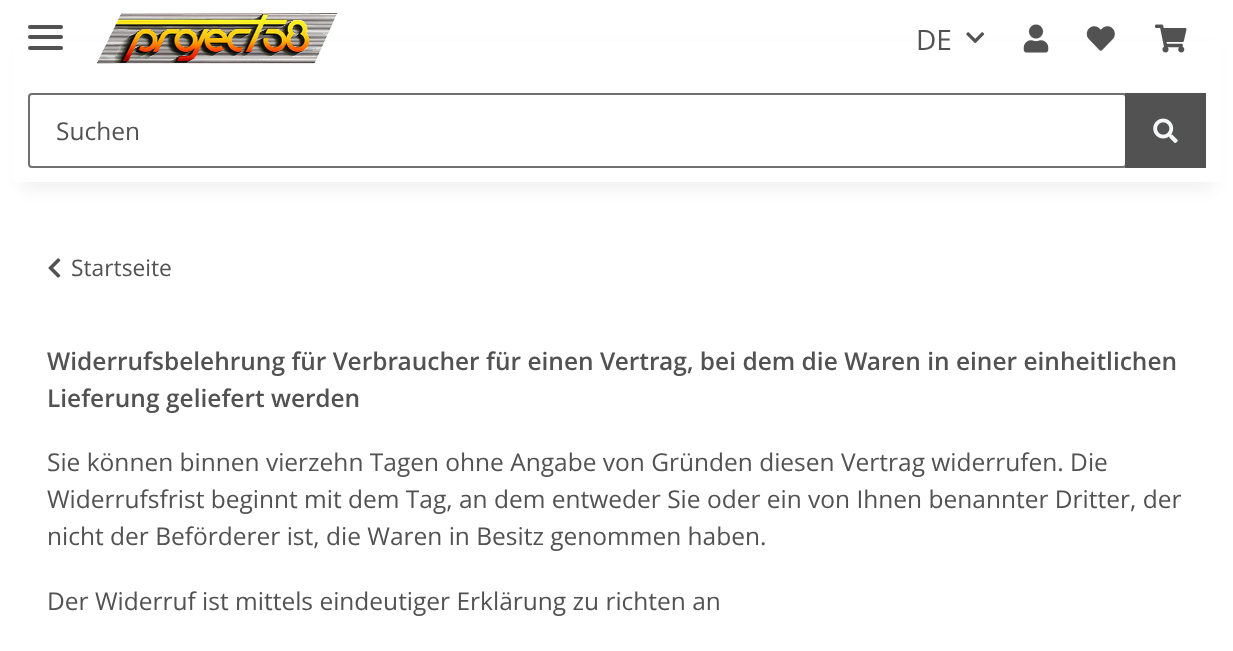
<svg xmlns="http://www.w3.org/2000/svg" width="1233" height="651">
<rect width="100%" height="100%" fill="#fff"/>
<rect x="21" y="49" width="1192" height="140" fill="#0000000f" filter="blur(8px)"/>
<rect x="13" y="41" width="1208" height="141" fill="#fff"/>
<rect x="28" y="35" width="35" height="4" rx="2" fill="#525252"/>
<rect x="28" y="25" width="35" height="4" rx="2" fill="#525252"/>
<rect x="28" y="46" width="35" height="4" rx="2" fill="#525252"/>
<image x="96" y="13" width="242" height="51" href="media/1.png"/>
<text x="916" y="50" style="font-family:Open Sans;font-size:28px;fill:#525252">DE</text>
<image x="966" y="32" width="19" height="12" href="media/2.png"/>
<image x="1023" y="24" width="26" height="29" href="media/3.png"/>
<image x="1086" y="26" width="29" height="25" href="media/4.png"/>
<image x="1155" y="24" width="32" height="29" href="media/5.png"/>
<rect x="29" y="94" width="1097" height="73" rx="3" fill="none" stroke="#707070" stroke-width="2"/>
<text x="56" y="140" style="font-family:Open Sans;font-size:24.5px;fill:#525252">Suchen</text>
<rect x="1125" y="93" width="81" height="75" fill="#525252"/>
<image x="1153" y="118" width="25" height="25" href="media/6.png"/>
<image x="48" y="258" width="13" height="20" href="media/7.png"/>
<text x="71" y="276" style="font-family:Open Sans;font-size:22.75px;fill:#525252">Startseite</text>
<text x="47" y="370" style="font-family:Open Sans;font-size:24.5px;font-weight:600;fill:#525252">Widerrufsbelehrung für Verbraucher für einen Vertrag, bei dem die Waren in einer einheitlichen</text>
<text x="47" y="407" style="font-family:Open Sans;font-size:24.5px;font-weight:600;fill:#525252">Lieferung geliefert werden</text>
<text x="47" y="471" style="font-family:Open Sans;font-size:24.5px;fill:#525252">Sie können binnen vierzehn Tagen ohne Angabe von Gründen diesen Vertrag widerrufen. Die</text>
<text x="47" y="508" style="font-family:Open Sans;font-size:24.5px;fill:#525252">Widerrufsfrist beginnt mit dem Tag, an dem entweder Sie oder ein von Ihnen benannter Dritter, der</text>
<text x="47" y="545" style="font-family:Open Sans;font-size:24.5px;fill:#525252">nicht der Beförderer ist, die Waren in Besitz genommen haben.</text>
<text x="47" y="610" style="font-family:Open Sans;font-size:24.5px;fill:#525252">Der Widerruf ist mittels eindeutiger Erklärung zu richten an</text>
</svg>
